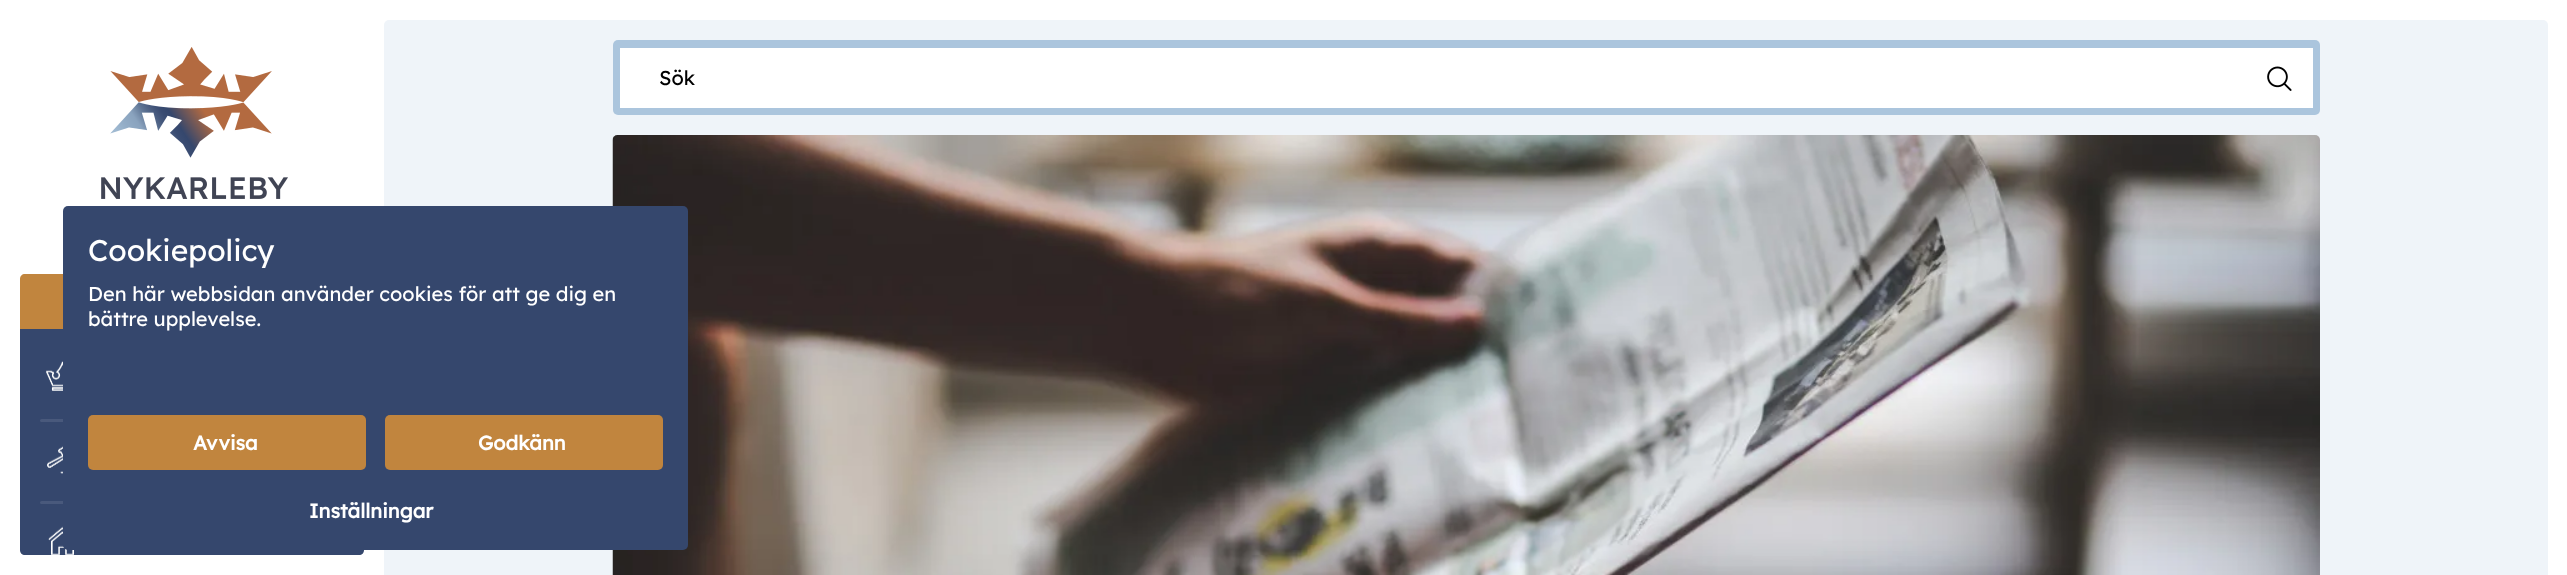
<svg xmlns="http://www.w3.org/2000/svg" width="2567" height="575">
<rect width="100%" height="100%" fill="#fff"/>
<image x="101" y="47" width="187" height="152" href="media/1.png"/>
<path d="M25 274h334c3 0 5 2 5 5v50h-344v-50c0-3 2-5 5-5z" fill="#c1853e"/>
<path d="M20 329h344v221c0 3-2 5-5 5h-334c-3 0-5-2-5-5z" fill="#35476d"/>
<image x="46" y="361" width="17" height="30" href="media/2.png"/>
<rect x="40" y="419" width="304" height="3" rx="1.5" fill="#49597c"/>
<image x="47" y="446" width="16" height="28" href="media/3.png"/>
<rect x="40" y="501" width="304" height="3" rx="1.5" fill="#49597c"/>
<image x="48" y="526" width="26" height="29" href="media/4.png"/>
<rect x="384" y="20" width="2164" height="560" rx="5" fill="#eff4f9"/>
<rect x="613" y="40" width="1707" height="75" rx="5" fill="#abc5dd"/>
<rect x="620" y="48" width="1693" height="60" fill="#fff"/>
<text x="659" y="85" style="font-family:Lexend;font-size:20px;fill:#000">Sök</text>
<image x="2267" y="66" width="25" height="25" href="media/5.png"/>
<image x="612" y="135" width="1708" height="440" href="media/6.png"/>
<rect x="63" y="206" width="625" height="344" rx="5" fill="#35476d"/>
<text x="88" y="261" style="font-family:Lexend;font-size:30px;fill:#fff">Cookiepolicy</text>
<text x="88" y="301" style="font-family:Lexend;font-size:20px;fill:#fff">Den här webbsidan använder cookies för att ge dig en</text>
<text x="88" y="326" style="font-family:Lexend;font-size:20px;fill:#fff">bättre upplevelse.</text>
<rect x="88" y="415" width="278" height="55" rx="5" fill="#c1853e"/>
<text x="193" y="450" style="font-family:Lexend;font-size:20px;font-weight:bold;fill:#fff">Avvisa</text>
<rect x="385" y="415" width="278" height="55" rx="5" fill="#c1853e"/>
<text x="478" y="450" style="font-family:Lexend;font-size:20px;font-weight:bold;fill:#fff">Godkänn</text>
<text x="309" y="518" style="font-family:Lexend;font-size:20px;font-weight:bold;fill:#fff">Inställningar</text>
</svg>
